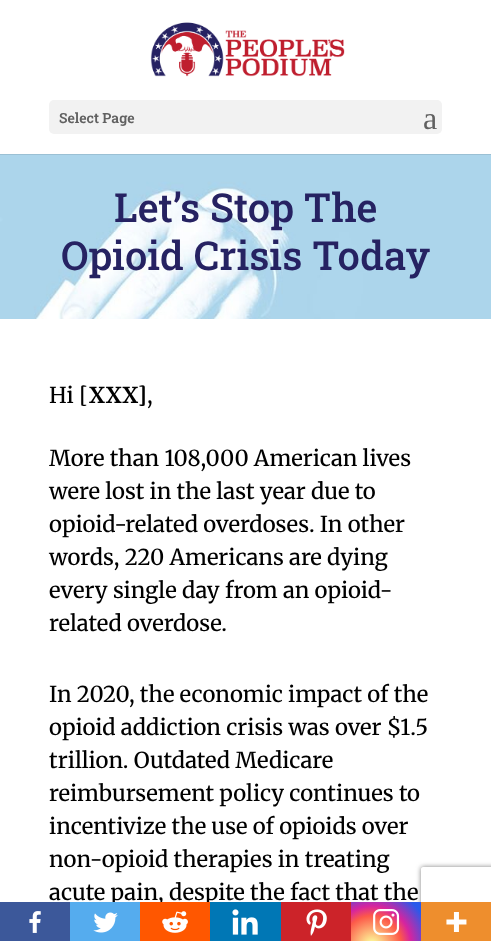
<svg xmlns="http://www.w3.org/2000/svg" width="491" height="941">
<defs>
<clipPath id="clip1"><path d="M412 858h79v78h-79zm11 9h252c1 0 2 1 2 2v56c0 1-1 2-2 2h-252c-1 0-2-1-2-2v-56c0-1 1-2 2-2z" clip-rule="evenodd"/></clipPath>
<radialGradient id="g1" gradientUnits="userSpaceOnUse" cx="372" cy="945" r="65"><stop offset="0" stop-color="#fdf497"/><stop offset="0.05" stop-color="#fdf497"/><stop offset="0.45" stop-color="#fd5949"/><stop offset="0.6" stop-color="#d6249f"/><stop offset="0.9" stop-color="#285aeb"/></radialGradient>
</defs>
<rect width="100%" height="100%" fill="#fff"/>
<rect y="154" width="491" height="1" fill="#9bc0d4"/>
<image x="150" y="22" width="195" height="55" href="media/1.png"/>
<rect x="49" y="100" width="393" height="34" rx="5" fill="#f2f2f2"/>
<text x="59" y="123" style="font-family:Roboto Slab;font-size:14px;font-weight:600;fill:#616161">Select Page</text>
<text x="423" y="129" style="font-family:Liberation Serif;font-size:32px;fill:#616161">a</text>
<image x="0" y="155" width="491" height="164" href="media/2.png"/>
<text x="114" y="222" style="font-family:Roboto Slab;font-size:40px;font-weight:500;fill:#262262">Let’s Stop The</text>
<text x="61" y="270" style="font-family:Roboto Slab;font-size:40px;font-weight:500;fill:#262262">Opioid Crisis Today</text>
<text x="49" y="403" style="font-family:Merriweather;font-size:22px;font-weight:500;fill:#000">Hi [</text>
<text x="89" y="403" style="font-family:Merriweather;font-size:22px;font-weight:bold;fill:#000">XXX]</text>
<text x="147" y="403" style="font-family:Merriweather;font-size:22px;font-weight:500;fill:#000">,</text>
<text x="49" y="466" style="font-family:Merriweather;font-size:22px;font-weight:500;fill:#000">More than 108,000 American lives</text>
<text x="49" y="499" style="font-family:Merriweather;font-size:22px;font-weight:500;fill:#000">were lost in the last year due to</text>
<text x="49" y="532" style="font-family:Merriweather;font-size:22px;font-weight:500;fill:#000">opioid-related overdoses. In other</text>
<text x="49" y="565" style="font-family:Merriweather;font-size:22px;font-weight:500;fill:#000">words, 220 Americans are dying</text>
<text x="49" y="598" style="font-family:Merriweather;font-size:22px;font-weight:500;fill:#000">every single day from an opioid-</text>
<text x="49" y="631" style="font-family:Merriweather;font-size:22px;font-weight:500;fill:#000">related overdose.</text>
<text x="49" y="702" style="font-family:Merriweather;font-size:22px;font-weight:500;fill:#000">In 2020, the economic impact of the</text>
<text x="49" y="735" style="font-family:Merriweather;font-size:22px;font-weight:500;fill:#000">opioid addiction crisis was over $1.5</text>
<text x="49" y="768" style="font-family:Merriweather;font-size:22px;font-weight:500;fill:#000">trillion. Outdated Medicare</text>
<text x="49" y="801" style="font-family:Merriweather;font-size:22px;font-weight:500;fill:#000">reimbursement policy continues to</text>
<text x="49" y="834" style="font-family:Merriweather;font-size:22px;font-weight:500;fill:#000">incentivize the use of opioids over</text>
<text x="49" y="867" style="font-family:Merriweather;font-size:22px;font-weight:500;fill:#000">non-opioid therapies in treating</text>
<g clip-path="url(#clip1)">
<rect x="421" y="867" width="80" height="60" rx="2" fill="#808080" filter="blur(2.5px)"/>
</g>
<text x="49" y="900" style="font-family:Merriweather;font-size:22px;font-weight:500;fill:#000">acute pain, despite the fact that the</text>
<rect y="902" width="70" height="39" fill="#3c589a"/>
<image x="29" y="911" width="12" height="22" href="media/3.png"/>
<rect x="70" y="902" width="70" height="39" fill="#55acee"/>
<image x="93" y="912" width="25" height="21" href="media/4.png"/>
<rect x="140" y="902" width="70" height="39" fill="#ff5700"/>
<image x="162" y="911" width="26" height="22" href="media/5.png"/>
<rect x="210" y="902" width="71" height="39" fill="#0077b5"/>
<image x="232" y="909" width="26" height="26" href="media/6.png"/>
<rect x="281" y="902" width="70" height="39" fill="#cc2329"/>
<image x="306" y="909" width="21" height="27" href="media/7.png"/>
<rect x="351" y="902" width="70" height="39" fill="url(#g1)"/>
<image x="373" y="909" width="27" height="26" href="media/8.png"/>
<rect x="421" y="902" width="70" height="39" fill="#ee8e2d"/>
<image x="446" y="912" width="21" height="20" href="media/9.png"/>
</svg>
